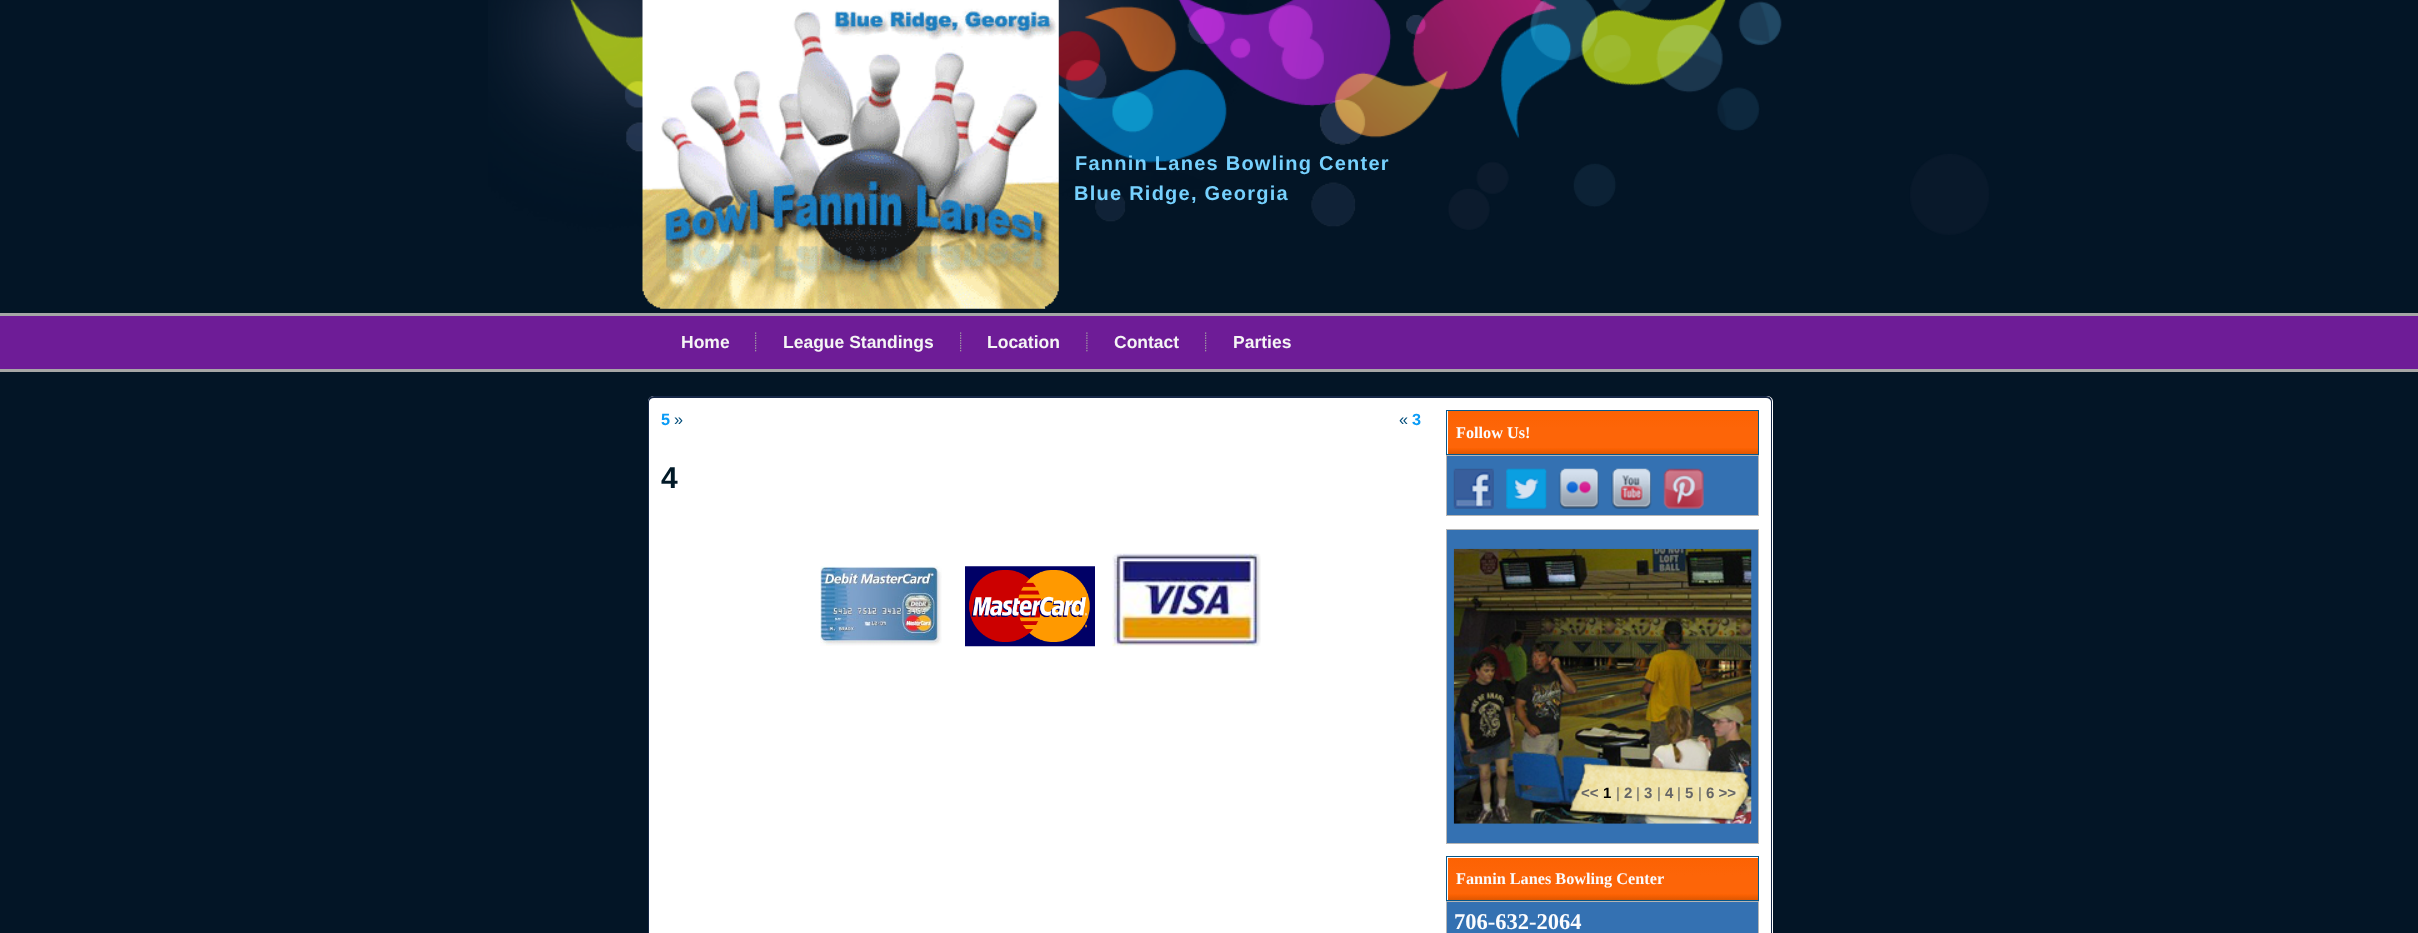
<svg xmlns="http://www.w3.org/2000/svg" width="2418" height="933">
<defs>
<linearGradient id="g1" gradientUnits="userSpaceOnUse" x1="1603" y1="411" x2="1603" y2="454"><stop offset="0" stop-color="#fc6203"/><stop offset="0.4" stop-color="#fd6508"/><stop offset="0.85" stop-color="#fd6508"/><stop offset="0.87" stop-color="#fc6203"/><stop offset="1" stop-color="#de5702"/></linearGradient>
<linearGradient id="g2" gradientUnits="userSpaceOnUse" x1="1603" y1="858" x2="1603" y2="900"><stop offset="0" stop-color="#fc6203"/><stop offset="0.4" stop-color="#fd6508"/><stop offset="0.85" stop-color="#fd6508"/><stop offset="0.87" stop-color="#fc6203"/><stop offset="1" stop-color="#de5702"/></linearGradient>
</defs>
<rect width="100%" height="100%" fill="#031526"/>
<image x="488" y="0" width="1501" height="235" href="media/1.png"/>
<image x="642" y="0" width="417" height="309" href="media/2.png"/>
<text x="1075" y="170" style="font-family:Liberation Sans;font-size:20px;font-weight:bold;letter-spacing:1.25px;fill:#76d1fe">Fannin Lanes Bowling Center</text>
<text x="1074" y="200" style="font-family:Liberation Sans;font-size:20px;font-weight:bold;letter-spacing:1.25px;fill:#76d1fe">Blue Ridge, Georgia</text>
<rect y="316" width="2418" height="53" fill="#6e1c97"/>
<rect y="313" width="2418" height="3" fill="#a6a6a6"/>
<rect y="369" width="2418" height="3" fill="#a6a6a6"/>
<text x="681" y="348" style="font-family:Liberation Sans;font-size:17.5px;font-weight:bold;fill:#f5f5f5">Home</text>
<image x="755" y="332" width="2" height="20" href="media/3.png"/>
<text x="783" y="348" style="font-family:Liberation Sans;font-size:17.5px;font-weight:bold;fill:#f5f5f5">League Standings</text>
<image x="960" y="332" width="2" height="20" href="media/3.png"/>
<text x="987" y="348" style="font-family:Liberation Sans;font-size:17.5px;font-weight:bold;fill:#f5f5f5">Location</text>
<image x="1086" y="332" width="2" height="20" href="media/4.png"/>
<text x="1114" y="348" style="font-family:Liberation Sans;font-size:17.5px;font-weight:bold;fill:#f5f5f5">Contact</text>
<image x="1205" y="332" width="2" height="20" href="media/3.png"/>
<text x="1233" y="348" style="font-family:Liberation Sans;font-size:17.5px;font-weight:bold;fill:#f5f5f5">Parties</text>
<path d="M654 396h1113c3.5 0 6 2.5 6 6v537h-1125v-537c0-3.5 2.5-6 6-6z" fill="#fff"/>
<path d="M654 396h1112c4 0 6 3 6 6v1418h-1124v-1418c0-3 2-6 6-6zm0 2h1112c3 0 5 2 5 4v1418h-1122v-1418c0-2 2-4 5-4z" fill="#162746" fill-rule="evenodd"/>
<text x="661" y="425" style="font-family:Liberation Sans;font-size:16.25px;font-weight:bold;fill:#099bf6">5</text>
<text x="674" y="425" style="font-family:Liberation Sans;font-size:16.25px;fill:#044e7b">»</text>
<text x="1399" y="425" style="font-family:Liberation Sans;font-size:16.25px;fill:#044e7b">«</text>
<text x="1412" y="425" style="font-family:Liberation Sans;font-size:16.25px;font-weight:bold;fill:#099bf6">3</text>
<text x="661" y="488" style="font-family:Liberation Sans;font-size:30px;font-weight:bold;fill:#011927">4</text>
<image x="820" y="566" width="122" height="80" href="media/5.png"/>
<image x="965" y="566" width="130" height="81" href="media/6.png"/>
<image x="1112" y="553" width="149" height="94" href="media/7.png"/>
<rect x="1448" y="411" width="310" height="43" fill="url(#g1)"/>
<rect x="1446.5" y="410.5" width="312" height="44" fill="none" stroke="#05578a"/>
<text x="1456" y="438" style="font-family:Liberation Serif;font-size:16.25px;font-weight:bold;fill:#fbfcfe">Follow Us!</text>
<rect x="1446.5" y="455.5" width="312" height="60" fill="#3471b2" stroke="#b5b5b5"/>
<image x="1453" y="468" width="41" height="41" href="media/8.png"/>
<image x="1506" y="468" width="41" height="41" href="media/9.png"/>
<image x="1558" y="468" width="41" height="41" href="media/10.png"/>
<image x="1611" y="468" width="41" height="41" href="media/11.png"/>
<image x="1663" y="468" width="41" height="41" href="media/12.png"/>
<rect x="1446.5" y="529.5" width="312" height="314" fill="#3471b2" stroke="#b5b5b5"/>
<image x="1453" y="548" width="299" height="276" href="media/13.png"/>
<image x="1569" y="762" width="182" height="61" href="media/14.png"/>
<text x="1581" y="798" style="font-family:Liberation Sans;font-size:15px;font-weight:bold;fill:#666">&lt;&lt;</text>
<text x="1603" y="798" style="font-family:Liberation Sans;font-size:15px;font-weight:bold;fill:#000">1</text>
<text x="1616" y="798" style="font-family:Liberation Sans;font-size:15px;fill:#666">|</text>
<text x="1624" y="798" style="font-family:Liberation Sans;font-size:15px;font-weight:bold;fill:#666">2</text>
<text x="1636" y="798" style="font-family:Liberation Sans;font-size:15px;fill:#666">|</text>
<text x="1644" y="798" style="font-family:Liberation Sans;font-size:15px;font-weight:bold;fill:#666">3</text>
<text x="1657" y="798" style="font-family:Liberation Sans;font-size:15px;fill:#666">|</text>
<text x="1665" y="798" style="font-family:Liberation Sans;font-size:15px;font-weight:bold;fill:#666">4</text>
<text x="1677" y="798" style="font-family:Liberation Sans;font-size:15px;fill:#666">|</text>
<text x="1685" y="798" style="font-family:Liberation Sans;font-size:15px;font-weight:bold;fill:#666">5</text>
<text x="1698" y="798" style="font-family:Liberation Sans;font-size:15px;fill:#666">|</text>
<text x="1706" y="798" style="font-family:Liberation Sans;font-size:15px;font-weight:bold;fill:#666">6 &gt;&gt;</text>
<rect x="1448" y="858" width="310" height="42" fill="url(#g2)"/>
<rect x="1446.5" y="856.5" width="312" height="44" fill="none" stroke="#05578a"/>
<text x="1456" y="884" style="font-family:Liberation Serif;font-size:16.25px;font-weight:bold;fill:#fbfcfe">Fannin Lanes Bowling Center</text>
<rect x="1446.5" y="901.5" width="312" height="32" fill="#3471b2" stroke="#b5b5b5"/>
<text x="1454" y="929" style="font-family:Liberation Serif;font-size:22.5px;font-weight:bold;fill:#fbfcfe">706-632-2064</text>
</svg>
